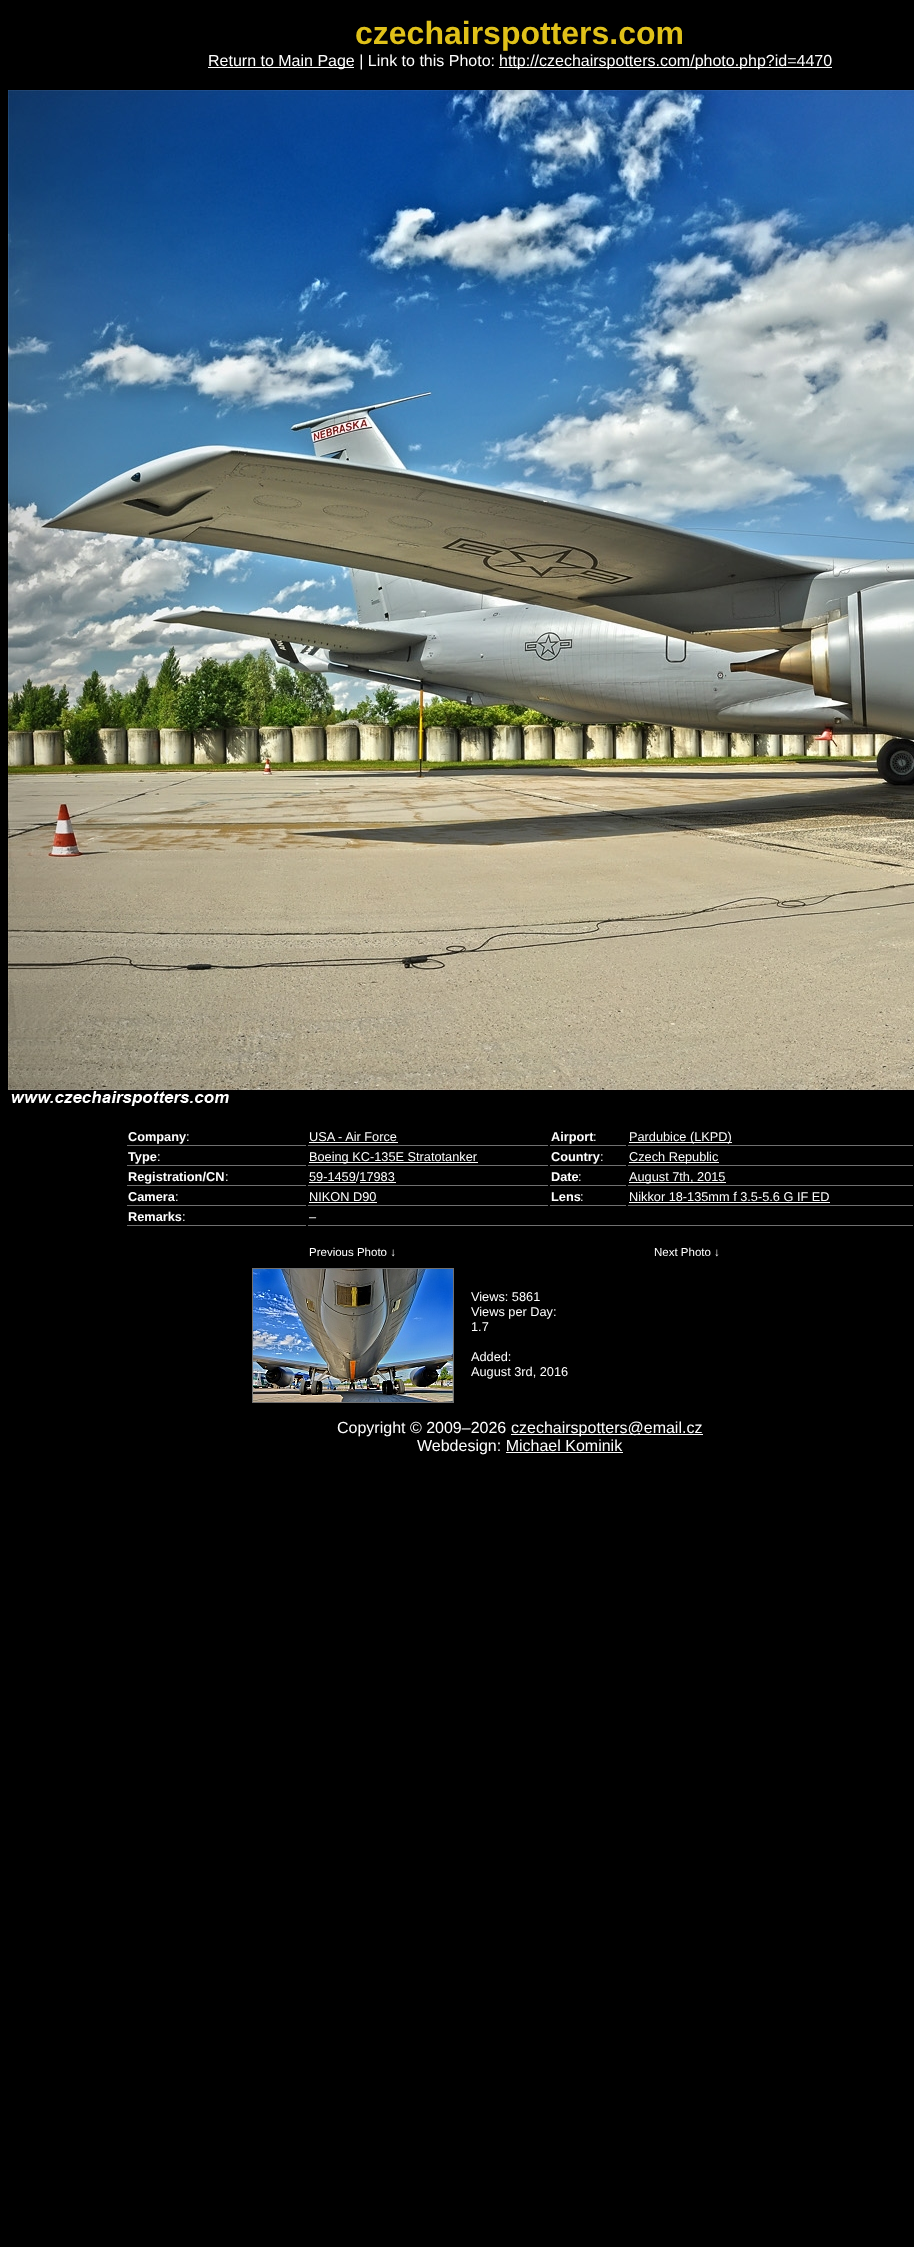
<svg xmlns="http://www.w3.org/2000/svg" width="914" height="2247">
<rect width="100%" height="100%" fill="#000"/>
<text x="355" y="44" style="font-family:Liberation Sans;font-size:32px;font-weight:bold;fill:#e0c119">czechairspotters.com</text>
<rect x="208" y="67" width="146" height="1" fill="#fff"/>
<text x="208" y="66" style="font-family:Liberation Sans;font-size:16px;fill:#fff">Return to Main Page | Link to this Photo:</text>
<rect x="499" y="67" width="333" height="1" fill="#fff"/>
<text x="499" y="66" style="font-family:Liberation Sans;font-size:16px;fill:#fff">http://czechairspotters.com/photo.php?id=4470</text>
<image x="8" y="90" width="906" height="1016" href="media/1.png"/>
<rect x="127" y="1145" width="179" height="1" fill="#707070"/>
<text x="128" y="1141" style="font-family:Liberation Sans;font-size:12.75px;font-weight:bold;fill:#fff">Company</text>
<text x="186" y="1141" style="font-family:Liberation Sans;font-size:12.75px;fill:#fff">:</text>
<rect x="308" y="1145" width="240" height="1" fill="#707070"/>
<text x="309" y="1141" style="font-family:Liberation Sans;font-size:12.75px;fill:#fff">USA - Air Force</text>
<rect x="309" y="1142" width="89" height="1" fill="#fff"/>
<rect x="550" y="1145" width="76" height="1" fill="#707070"/>
<text x="551" y="1141" style="font-family:Liberation Sans;font-size:12.75px;font-weight:bold;fill:#fff">Airport</text>
<text x="593" y="1141" style="font-family:Liberation Sans;font-size:12.75px;fill:#fff">:</text>
<rect x="628" y="1145" width="285" height="1" fill="#707070"/>
<rect x="629" y="1142" width="103" height="1" fill="#fff"/>
<text x="629" y="1141" style="font-family:Liberation Sans;font-size:12.75px;fill:#fff">Pardubice (LKPD)</text>
<rect x="127" y="1165" width="179" height="1" fill="#707070"/>
<text x="128" y="1161" style="font-family:Liberation Sans;font-size:12.75px;font-weight:bold;fill:#fff">Type</text>
<text x="157" y="1161" style="font-family:Liberation Sans;font-size:12.75px;fill:#fff">:</text>
<rect x="308" y="1165" width="240" height="1" fill="#707070"/>
<rect x="309" y="1162" width="169" height="1" fill="#fff"/>
<text x="309" y="1161" style="font-family:Liberation Sans;font-size:12.75px;fill:#fff">Boeing KC-135E Stratotanker</text>
<rect x="550" y="1165" width="76" height="1" fill="#707070"/>
<text x="551" y="1161" style="font-family:Liberation Sans;font-size:12.75px;font-weight:bold;fill:#fff">Country</text>
<text x="600" y="1161" style="font-family:Liberation Sans;font-size:12.75px;fill:#fff">:</text>
<rect x="628" y="1165" width="285" height="1" fill="#707070"/>
<rect x="629" y="1162" width="90" height="1" fill="#fff"/>
<text x="629" y="1161" style="font-family:Liberation Sans;font-size:12.75px;fill:#fff">Czech Republic</text>
<rect x="127" y="1185" width="179" height="1" fill="#707070"/>
<text x="128" y="1181" style="font-family:Liberation Sans;font-size:12.75px;font-weight:bold;fill:#fff">Registration/CN</text>
<text x="225" y="1181" style="font-family:Liberation Sans;font-size:12.75px;fill:#fff">:</text>
<rect x="308" y="1185" width="240" height="1" fill="#707070"/>
<text x="309" y="1181" style="font-family:Liberation Sans;font-size:12.75px;fill:#fff">59-1459/17983</text>
<rect x="309" y="1182" width="47" height="1" fill="#fff"/>
<rect x="360" y="1182" width="36" height="1" fill="#fff"/>
<rect x="550" y="1185" width="76" height="1" fill="#707070"/>
<text x="551" y="1181" style="font-family:Liberation Sans;font-size:12.75px;font-weight:bold;fill:#fff">Date</text>
<text x="578" y="1181" style="font-family:Liberation Sans;font-size:12.75px;fill:#fff">:</text>
<rect x="628" y="1185" width="285" height="1" fill="#707070"/>
<rect x="629" y="1182" width="97" height="1" fill="#fff"/>
<text x="629" y="1181" style="font-family:Liberation Sans;font-size:12.75px;fill:#fff">August 7th, 2015</text>
<rect x="127" y="1205" width="179" height="1" fill="#707070"/>
<text x="128" y="1201" style="font-family:Liberation Sans;font-size:12.75px;font-weight:bold;fill:#fff">Camera</text>
<text x="175" y="1201" style="font-family:Liberation Sans;font-size:12.75px;fill:#fff">:</text>
<rect x="308" y="1205" width="240" height="1" fill="#707070"/>
<text x="309" y="1201" style="font-family:Liberation Sans;font-size:12.75px;fill:#fff">NIKON D90</text>
<rect x="309" y="1202" width="68" height="1" fill="#fff"/>
<rect x="550" y="1205" width="76" height="1" fill="#707070"/>
<text x="551" y="1201" style="font-family:Liberation Sans;font-size:12.75px;font-weight:bold;fill:#fff">Lens</text>
<text x="580" y="1201" style="font-family:Liberation Sans;font-size:12.75px;fill:#fff">:</text>
<rect x="628" y="1205" width="285" height="1" fill="#707070"/>
<text x="629" y="1201" style="font-family:Liberation Sans;font-size:12.75px;fill:#fff">Nikkor 18-135mm f 3.5-5.6 G IF ED</text>
<rect x="629" y="1202" width="201" height="1" fill="#fff"/>
<rect x="127" y="1225" width="179" height="1" fill="#707070"/>
<text x="128" y="1221" style="font-family:Liberation Sans;font-size:12.75px;font-weight:bold;fill:#fff">Remarks</text>
<text x="182" y="1221" style="font-family:Liberation Sans;font-size:12.75px;fill:#fff">:</text>
<rect x="308" y="1225" width="605" height="1" fill="#707070"/>
<text x="309" y="1221" style="font-family:Liberation Sans;font-size:12.75px;fill:#fff">–</text>
<text x="309" y="1256" style="font-family:Liberation Sans;font-size:11.5px;fill:#fff">Previous Photo ↓</text>
<text x="654" y="1256" style="font-family:Liberation Sans;font-size:11.5px;fill:#fff">Next Photo ↓</text>
<rect x="252.5" y="1268.5" width="201" height="134" fill="none" stroke="#707070"/>
<image x="253" y="1269" width="200" height="133" href="media/2.png"/>
<text x="471" y="1301" style="font-family:Liberation Sans;font-size:12.75px;fill:#fff">Views: 5861</text>
<text x="471" y="1316" style="font-family:Liberation Sans;font-size:12.75px;fill:#fff">Views per Day:</text>
<text x="471" y="1331" style="font-family:Liberation Sans;font-size:12.75px;fill:#fff">1.7</text>
<text x="471" y="1361" style="font-family:Liberation Sans;font-size:12.75px;fill:#fff">Added:</text>
<text x="471" y="1376" style="font-family:Liberation Sans;font-size:12.75px;fill:#fff">August 3rd, 2016</text>
<text x="337" y="1433" style="font-family:Liberation Sans;font-size:16px;fill:#fff">Copyright © 2009–2026</text>
<rect x="511" y="1434" width="192" height="1" fill="#fff"/>
<text x="511" y="1433" style="font-family:Liberation Sans;font-size:16px;fill:#fff">czechairspotters@email.cz</text>
<text x="417" y="1451" style="font-family:Liberation Sans;font-size:16px;fill:#fff">Webdesign: Michael Kominik</text>
<rect x="506" y="1452" width="117" height="1" fill="#fff"/>
</svg>
